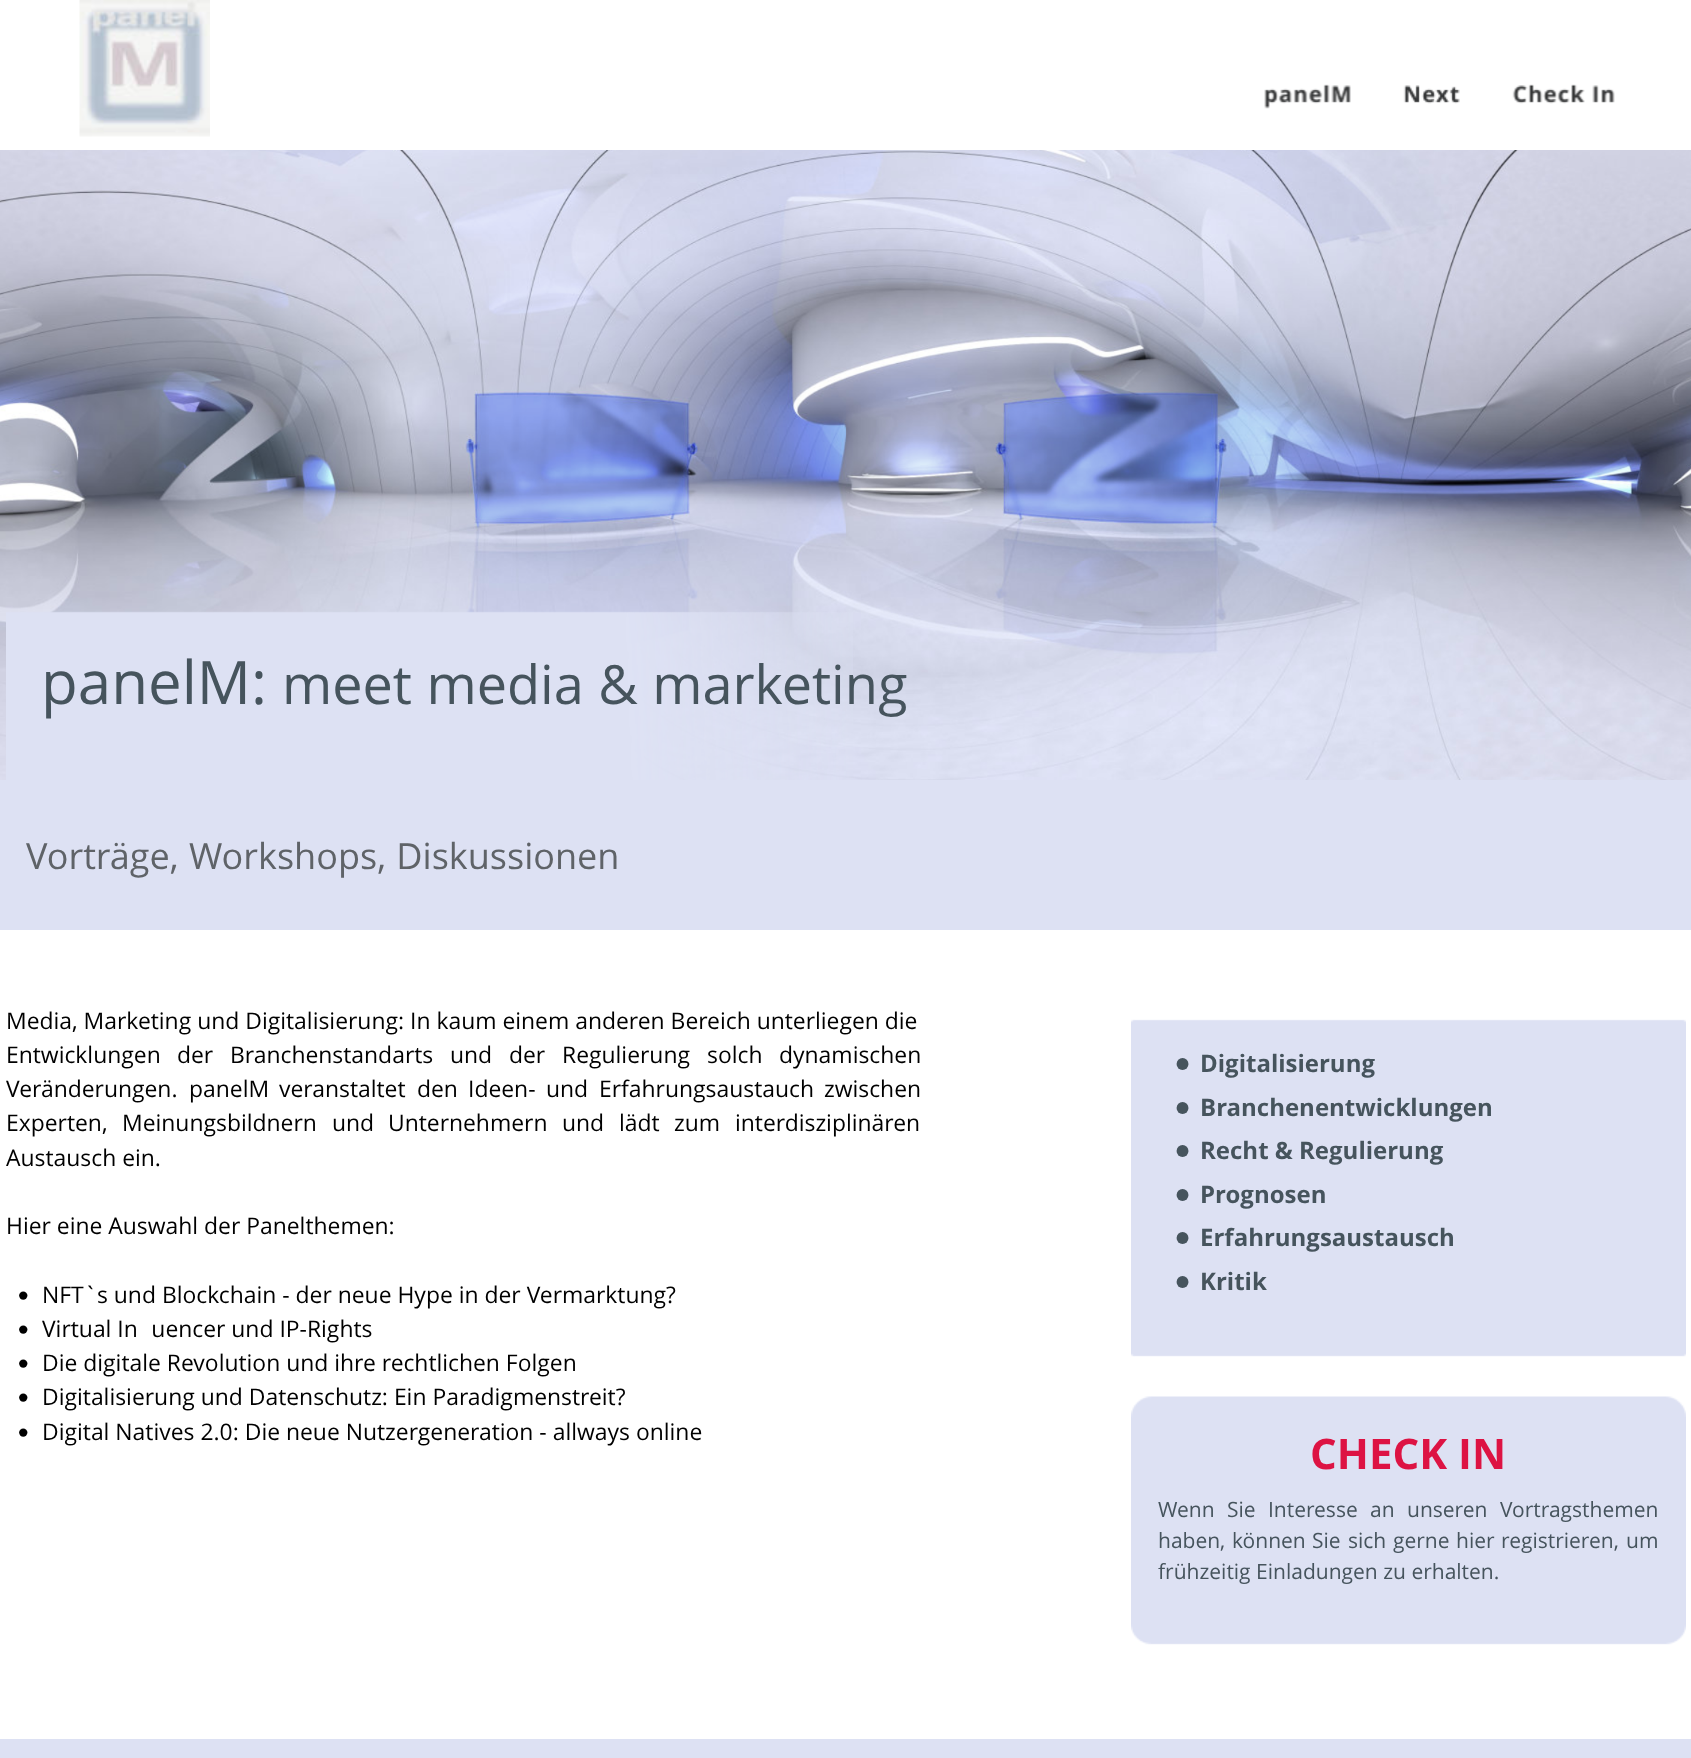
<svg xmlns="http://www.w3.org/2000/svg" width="1691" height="1758">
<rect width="100%" height="100%" fill="#fff"/>
<image x="79" y="0" width="131" height="137" href="media/1.png"/>
<image x="1264" y="84" width="87" height="25" href="media/2.png"/>
<image x="1403" y="85" width="57" height="19" href="media/3.png"/>
<image x="1512" y="84" width="103" height="20" href="media/4.png"/>
<image x="0" y="150" width="1691" height="630" href="media/5.png"/>
<image x="6" y="611" width="847" height="169" href="media/6.png"/>
<text x="41" y="704" style="font-family:Open Sans;font-size:60px;fill:#46545d">panelM:</text>
<text x="282" y="704" word-spacing="0.5" style="font-family:Open Sans;font-size:54px;fill:#46545d">meet media &amp; marketing</text>
<rect y="780" width="1691" height="150" fill="#dde1f3"/>
<text x="26" y="869" word-spacing="1" style="font-family:Open Sans;font-size:36px;fill:#5f6368">Vorträge, Workshops, Diskussionen</text>
<text x="6" y="1029" style="font-family:Open Sans;font-size:22.9px;fill:#000">Media, Marketing und Digitalisierung: In kaum einem anderen Bereich unterliegen die</text>
<text x="6" y="1063" style="font-family:Open Sans;font-size:22.9px;fill:#000">Entwicklungen</text>
<text x="177" y="1063" style="font-family:Open Sans;font-size:22.9px;fill:#000">der</text>
<text x="230" y="1063" style="font-family:Open Sans;font-size:22.9px;fill:#000">Branchenstandarts</text>
<text x="450" y="1063" style="font-family:Open Sans;font-size:22.9px;fill:#000">und</text>
<text x="509" y="1063" style="font-family:Open Sans;font-size:22.9px;fill:#000">der</text>
<text x="562" y="1063" style="font-family:Open Sans;font-size:22.9px;fill:#000">Regulierung</text>
<text x="707" y="1063" style="font-family:Open Sans;font-size:22.9px;fill:#000">solch</text>
<text x="779" y="1063" style="font-family:Open Sans;font-size:22.9px;fill:#000">dynamischen</text>
<text x="6" y="1097" style="font-family:Open Sans;font-size:22.9px;fill:#000">Veränderungen.</text>
<text x="189" y="1097" style="font-family:Open Sans;font-size:22.9px;fill:#000">panelM</text>
<text x="279" y="1097" style="font-family:Open Sans;font-size:22.9px;fill:#000">veranstaltet</text>
<text x="417" y="1097" style="font-family:Open Sans;font-size:22.9px;fill:#000">den</text>
<text x="468" y="1097" style="font-family:Open Sans;font-size:22.9px;fill:#000">Ideen-</text>
<text x="546" y="1097" style="font-family:Open Sans;font-size:22.9px;fill:#000">und</text>
<text x="599" y="1097" style="font-family:Open Sans;font-size:22.9px;fill:#000">Erfahrungsaustauch</text>
<text x="824" y="1097" style="font-family:Open Sans;font-size:22.9px;fill:#000">zwischen</text>
<text x="6" y="1131" style="font-family:Open Sans;font-size:22.9px;fill:#000">Experten,</text>
<text x="122" y="1131" style="font-family:Open Sans;font-size:22.9px;fill:#000">Meinungsbildnern</text>
<text x="332" y="1131" style="font-family:Open Sans;font-size:22.9px;fill:#000">und</text>
<text x="388" y="1131" style="font-family:Open Sans;font-size:22.9px;fill:#000">Unternehmern</text>
<text x="562" y="1131" style="font-family:Open Sans;font-size:22.9px;fill:#000">und</text>
<text x="619" y="1131" style="font-family:Open Sans;font-size:22.9px;fill:#000">lädt</text>
<text x="674" y="1131" style="font-family:Open Sans;font-size:22.9px;fill:#000">zum</text>
<text x="735" y="1131" style="font-family:Open Sans;font-size:22.9px;fill:#000">interdisziplinären</text>
<text x="6" y="1166" style="font-family:Open Sans;font-size:22.9px;fill:#000">Austausch ein.</text>
<text x="6" y="1234" style="font-family:Open Sans;font-size:22.9px;fill:#000">Hier eine Auswahl der Panelthemen:</text>
<text x="17" y="1303" style="font-family:Verdana;font-size:22.9px;fill:#000">•</text>
<text x="42" y="1303" style="font-family:Open Sans;font-size:22.9px;fill:#000">NFT`s und Blockchain - der neue Hype in der Vermarktung?</text>
<text x="17" y="1337" style="font-family:Verdana;font-size:22.9px;fill:#000">•</text>
<text x="42" y="1337" style="font-family:Open Sans;font-size:22.9px;fill:#000">Virtual Influencer und IP-Rights</text>
<text x="17" y="1371" style="font-family:Verdana;font-size:22.9px;fill:#000">•</text>
<text x="42" y="1371" style="font-family:Open Sans;font-size:22.9px;fill:#000">Die digitale Revolution und ihre rechtlichen Folgen</text>
<text x="17" y="1405" style="font-family:Verdana;font-size:22.9px;fill:#000">•</text>
<text x="42" y="1405" style="font-family:Open Sans;font-size:22.9px;fill:#000">Digitalisierung und Datenschutz: Ein Paradigmenstreit?</text>
<text x="17" y="1440" style="font-family:Verdana;font-size:22.9px;fill:#000">•</text>
<text x="42" y="1440" style="font-family:Open Sans;font-size:22.9px;fill:#000">Digital Natives 2.0: Die neue Nutzergeneration - allways online</text>
<image x="1131" y="1019" width="555" height="338" href="media/7.png"/>
<text x="1174" y="1072" style="font-family:Verdana;font-size:24px;font-weight:bold;fill:#46545d">•</text>
<text x="1200" y="1072" style="font-family:Open Sans;font-size:24px;font-weight:bold;fill:#46545d">Digitalisierung</text>
<text x="1174" y="1116" style="font-family:Verdana;font-size:24px;font-weight:bold;fill:#46545d">•</text>
<text x="1200" y="1116" style="font-family:Open Sans;font-size:24px;font-weight:bold;fill:#46545d">Branchenentwicklungen</text>
<text x="1174" y="1159" style="font-family:Verdana;font-size:24px;font-weight:bold;fill:#46545d">•</text>
<text x="1200" y="1159" style="font-family:Open Sans;font-size:24px;font-weight:bold;fill:#46545d">Recht &amp; Regulierung</text>
<text x="1174" y="1203" style="font-family:Verdana;font-size:24px;font-weight:bold;fill:#46545d">•</text>
<text x="1200" y="1203" style="font-family:Open Sans;font-size:24px;font-weight:bold;fill:#46545d">Prognosen</text>
<text x="1174" y="1246" style="font-family:Verdana;font-size:24px;font-weight:bold;fill:#46545d">•</text>
<text x="1200" y="1246" style="font-family:Open Sans;font-size:24px;font-weight:bold;fill:#46545d">Erfahrungsaustausch</text>
<text x="1174" y="1290" style="font-family:Verdana;font-size:24px;font-weight:bold;fill:#46545d">•</text>
<text x="1200" y="1290" style="font-family:Open Sans;font-size:24px;font-weight:bold;fill:#46545d">Kritik</text>
<image x="1131" y="1396" width="555" height="249" href="media/8.png"/>
<text x="1310" y="1469" style="font-family:Open Sans;font-size:42px;font-weight:bold;fill:#dd1343">CHECK IN</text>
<text x="1158" y="1517" style="font-family:Open Sans;font-size:21px;fill:#46545d">Wenn</text>
<text x="1227" y="1517" style="font-family:Open Sans;font-size:21px;fill:#46545d">Sie</text>
<text x="1268" y="1517" style="font-family:Open Sans;font-size:21px;fill:#46545d">Interesse</text>
<text x="1370" y="1517" style="font-family:Open Sans;font-size:21px;fill:#46545d">an</text>
<text x="1407" y="1517" style="font-family:Open Sans;font-size:21px;fill:#46545d">unseren</text>
<text x="1500" y="1517" style="font-family:Open Sans;font-size:21px;fill:#46545d">Vortragsthemen</text>
<text x="1158" y="1548" style="font-family:Open Sans;font-size:21px;fill:#46545d">haben,</text>
<text x="1232" y="1548" style="font-family:Open Sans;font-size:21px;fill:#46545d">können</text>
<text x="1312" y="1548" style="font-family:Open Sans;font-size:21px;fill:#46545d">Sie</text>
<text x="1348" y="1548" style="font-family:Open Sans;font-size:21px;fill:#46545d">sich</text>
<text x="1393" y="1548" style="font-family:Open Sans;font-size:21px;fill:#46545d">gerne</text>
<text x="1456" y="1548" style="font-family:Open Sans;font-size:21px;fill:#46545d">hier</text>
<text x="1501" y="1548" style="font-family:Open Sans;font-size:21px;fill:#46545d">registrieren,</text>
<text x="1626" y="1548" style="font-family:Open Sans;font-size:21px;fill:#46545d">um</text>
<text x="1158" y="1579" style="font-family:Open Sans;font-size:21px;fill:#46545d">frühzeitig Einladungen zu erhalten.</text>
<rect y="1739" width="1691" height="19" fill="#dde1f3"/>
</svg>
